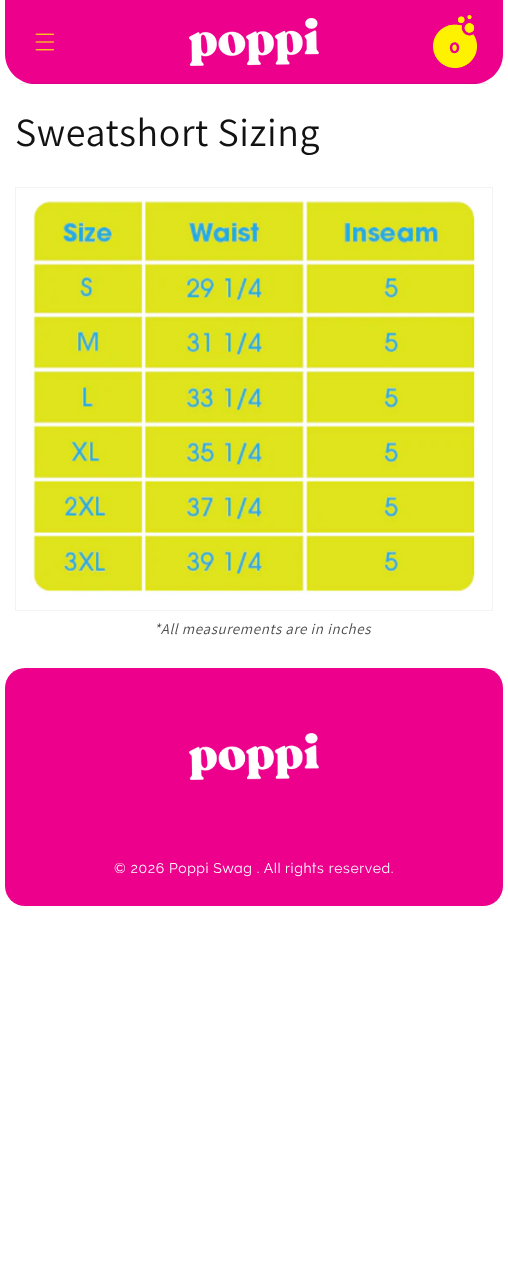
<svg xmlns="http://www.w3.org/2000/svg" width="508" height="1280">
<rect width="100%" height="100%" fill="#fff"/>
<path d="M5 0h498v54c0 16.5-13.5 30-30 30h-438c-16.5 0-30-13.5-30-30z" fill="#ec008c"/>
<rect x="20" y="83" width="468" height="1" fill="#12121214"/>
<image x="35" y="33" width="20" height="18" href="media/1.png"/>
<image x="189" y="18" width="130" height="48" href="media/2.png"/>
<image x="433" y="15" width="44" height="53" href="media/3.png"/>
<text x="449" y="53" style="font-family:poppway;font-size:18px;font-weight:bold;letter-spacing:0.6px;fill:#ec008c">0</text>
<text x="15" y="146" style="font-family:Assistant;font-size:40px;letter-spacing:0.6px;fill:#121212">Sweatshort Sizing</text>
<rect x="15.5" y="187.5" width="477" height="423" fill="none" stroke="#f3f3f3"/>
<image x="30" y="200" width="448" height="396" href="media/4.png"/>
<text x="154" y="634" style="font-family:Assistant;font-size:15px;font-style:italic;letter-spacing:0.6px;fill:#4d4d4d">*All measurements are in inches</text>
<rect x="5" y="668" width="498" height="238" rx="20" fill="#ec008c"/>
<image x="189" y="733" width="130" height="47" href="media/5.png"/>
<text x="114" y="873" style="font-family:poppway;font-size:14px;letter-spacing:0.6px;fill:#fff">© 2026 Poppi Swag . All rights reserved.</text>
</svg>
